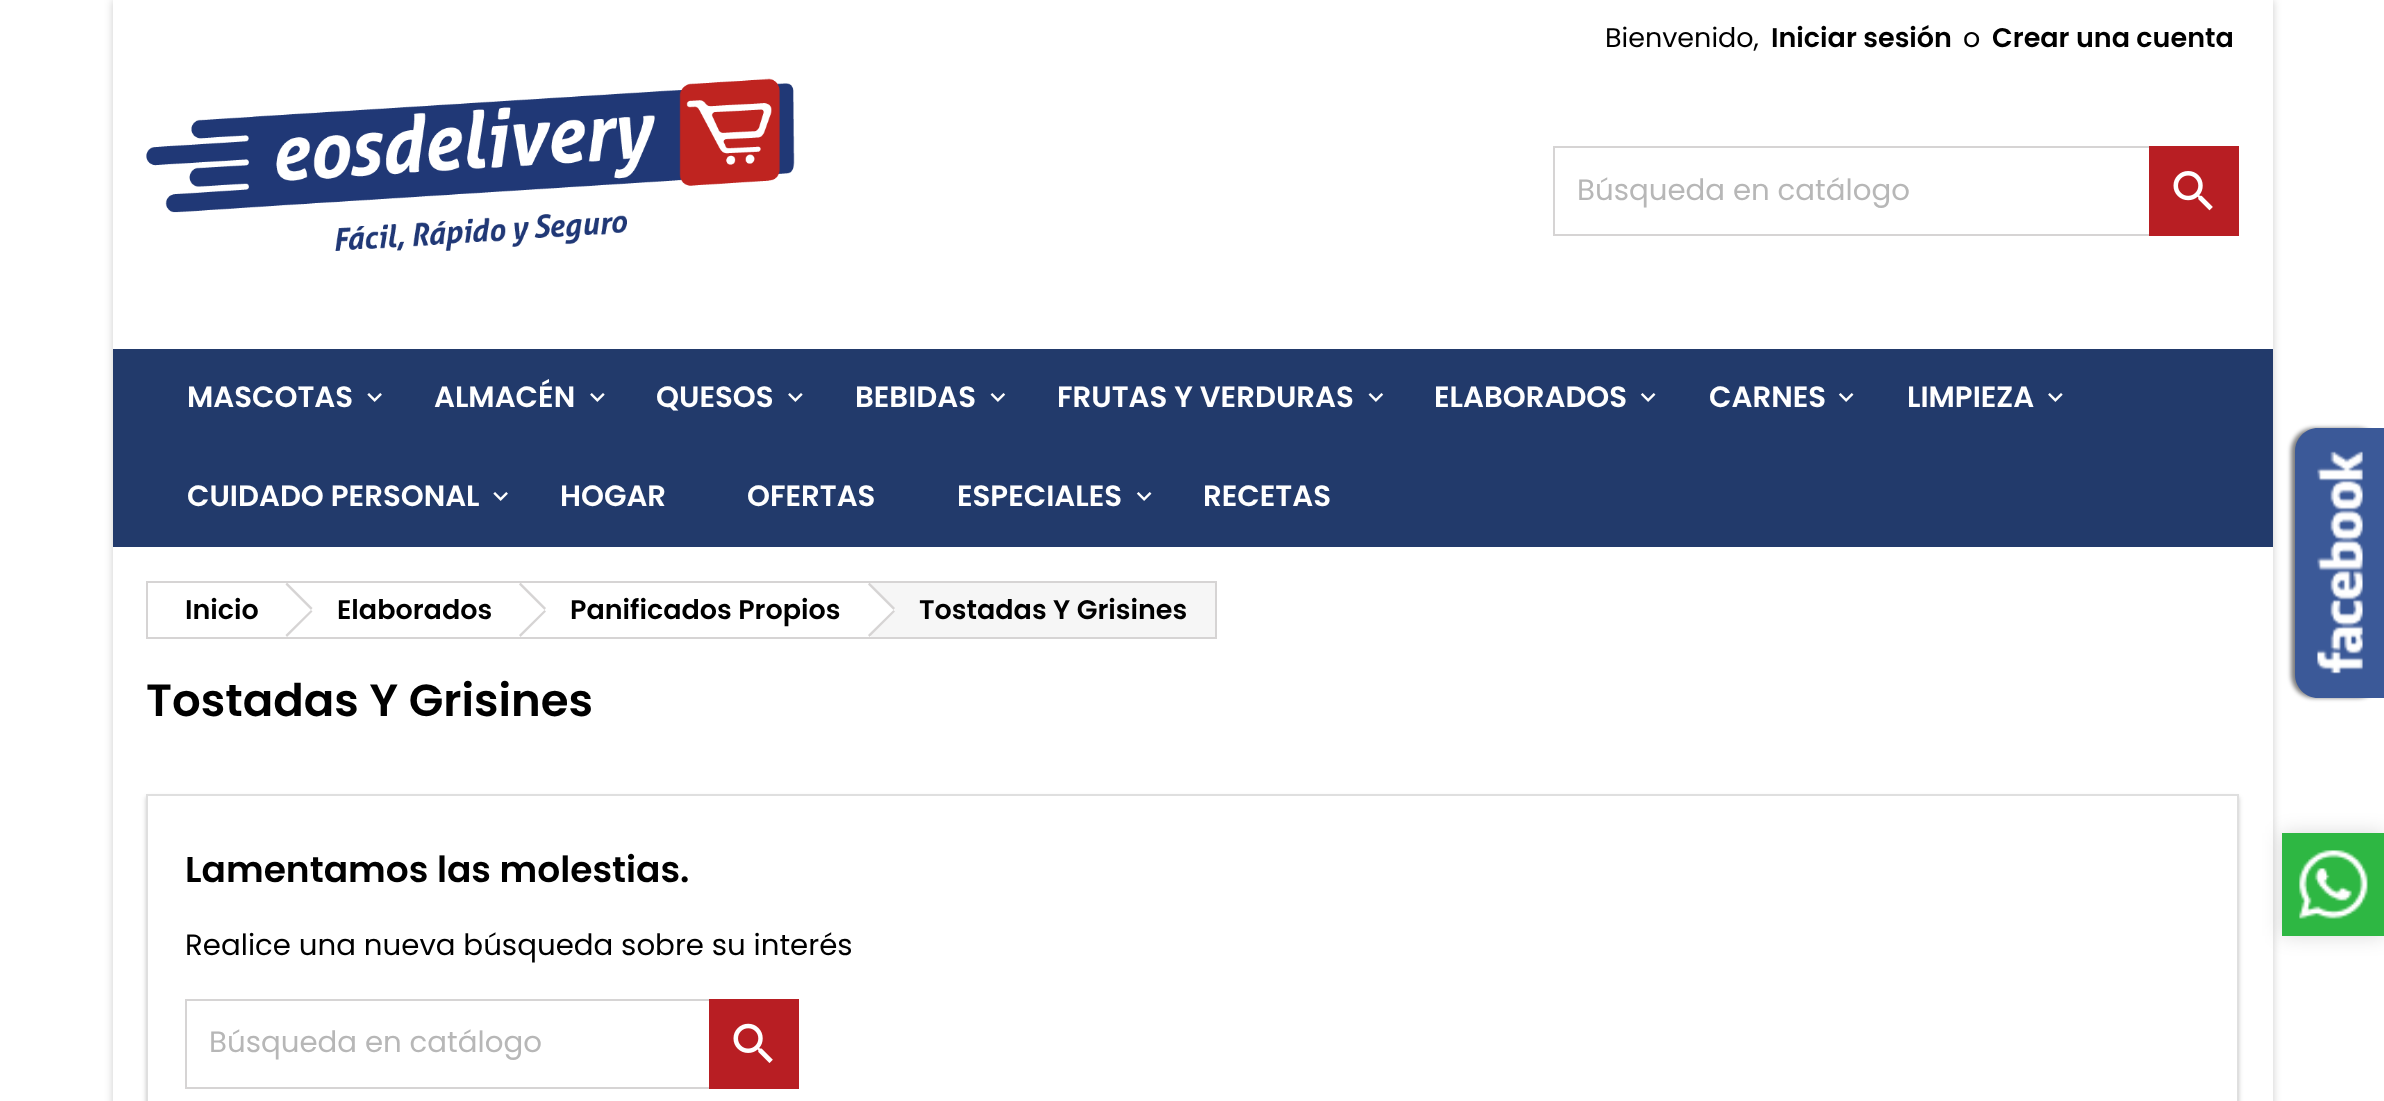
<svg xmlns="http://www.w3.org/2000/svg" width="2384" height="1101">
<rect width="100%" height="100%" fill="#fff"/>
<rect x="113" width="2160" height="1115" fill="#00000033" filter="blur(4.5px)"/>
<rect x="113" width="2160" height="1101" fill="#fff"/>
<text x="1605" y="47" style="font-family:Poppins;font-size:27px;fill:#000">Bienvenido,</text>
<text x="1771" y="47" style="font-family:Poppins;font-size:27px;font-weight:600;fill:#000">Iniciar sesión</text>
<text x="1963" y="47" style="font-family:Poppins;font-size:27px;fill:#000">o</text>
<text x="1992" y="47" style="font-family:Poppins;font-size:27px;font-weight:600;fill:#000">Crear una cuenta</text>
<image x="146" y="78" width="649" height="173" href="media/1.png"/>
<rect x="1554" y="147" width="684" height="88" fill="none" stroke="#d6d4d4" stroke-width="2"/>
<text x="1577" y="200" style="font-family:Poppins;font-size:29.25px;fill:#b7b7b7">Búsqueda en catálogo</text>
<rect x="2149" y="146" width="90" height="90" fill="#b81e23"/>
<image x="2173" y="171" width="40" height="40" href="media/2.png"/>
<rect x="113" y="349" width="2160" height="198" fill="#223a6b"/>
<text x="187" y="407" style="font-family:Poppins;font-size:29.25px;font-weight:600;fill:#fff">MASCOTAS</text>
<image x="367" y="393" width="15" height="9" href="media/3.png"/>
<text x="434" y="407" style="font-family:Poppins;font-size:29.25px;font-weight:600;fill:#fff">ALMACÉN</text>
<image x="590" y="393" width="15" height="9" href="media/4.png"/>
<text x="656" y="407" style="font-family:Poppins;font-size:29.25px;font-weight:600;fill:#fff">QUESOS</text>
<image x="788" y="393" width="15" height="9" href="media/4.png"/>
<text x="855" y="407" style="font-family:Poppins;font-size:29.25px;font-weight:600;fill:#fff">BEBIDAS</text>
<image x="990" y="393" width="16" height="9" href="media/5.png"/>
<text x="1057" y="407" style="font-family:Poppins;font-size:29.25px;font-weight:600;fill:#fff">FRUTAS Y VERDURAS</text>
<image x="1368" y="393" width="16" height="9" href="media/5.png"/>
<text x="1434" y="407" style="font-family:Poppins;font-size:29.25px;font-weight:600;fill:#fff">ELABORADOS</text>
<image x="1640" y="393" width="16" height="9" href="media/6.png"/>
<text x="1709" y="407" style="font-family:Poppins;font-size:29.25px;font-weight:600;fill:#fff">CARNES</text>
<image x="1838" y="393" width="16" height="9" href="media/6.png"/>
<text x="1907" y="407" style="font-family:Poppins;font-size:29.25px;font-weight:600;fill:#fff">LIMPIEZA</text>
<image x="2048" y="393" width="15" height="9" href="media/4.png"/>
<text x="187" y="506" style="font-family:Poppins;font-size:29.25px;font-weight:600;fill:#fff">CUIDADO PERSONAL</text>
<image x="493" y="492" width="15" height="9" href="media/3.png"/>
<text x="560" y="506" style="font-family:Poppins;font-size:29.25px;font-weight:600;fill:#fff">HOGAR</text>
<text x="747" y="506" style="font-family:Poppins;font-size:29.25px;font-weight:600;fill:#fff">OFERTAS</text>
<text x="957" y="506" style="font-family:Poppins;font-size:29.25px;font-weight:600;fill:#fff">ESPECIALES</text>
<image x="1136" y="492" width="16" height="9" href="media/6.png"/>
<text x="1203" y="506" style="font-family:Poppins;font-size:29.25px;font-weight:600;fill:#fff">RECETAS</text>
<rect x="2291" y="428" width="90" height="270" rx="23" fill="#00000080" filter="blur(2px)"/>
<path d="M2318 428h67v270h-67c-12.5 0-23-10.5-23-23v-224c0-12.5 10.5-23 23-23z" fill="#3b5998"/>
<image x="2317" y="451" width="46" height="223" href="media/7.png"/>
<rect x="147" y="582" width="1069" height="56" fill="none" stroke="#d6d4d4" stroke-width="2"/>
<text x="185" y="619" style="font-family:Poppins;font-size:27px;font-weight:600;fill:#000">Inicio</text>
<path d="M287 582.5l25.5 25.5l-1.5 2l-25.5-25.5zm24 27.5l1.5 1.5l-25.5 25.5l-1.5-2z" fill="#d6d4d4"/>
<text x="337" y="619" style="font-family:Poppins;font-size:27px;font-weight:600;fill:#000">Elaborados</text>
<path d="M520.5 582.5l25.5 25.5l-1.5 2l-25.5-25.5zm24 27.5l1.5 1.5l-25.5 25.5l-1.5-2z" fill="#d6d4d4"/>
<text x="570" y="619" style="font-family:Poppins;font-size:27px;font-weight:600;fill:#000">Panificados Propios</text>
<rect x="871" y="583" width="344" height="54" fill="#f6f6f6"/>
<path d="M871 584l22 23c2 1 2 4 0 6l-22 22c-2 2-5 2-6 0l-23-22c-1-2-1-5 0-6l23-23c1-1 4-1 6 0z" fill="#fff"/>
<path d="M869.5 582.5l25.5 25.5l-1.5 2l-25.5-25.5zm24 27.5l1.5 1.5l-25.5 25.5l-1.5-2z" fill="#d6d4d4"/>
<text x="919" y="619" style="font-family:Poppins;font-size:27px;font-weight:600;fill:#000">Tostadas Y Grisines</text>
<text x="146" y="716" style="font-family:Poppins;font-size:45px;font-weight:600;fill:#000">Tostadas Y Grisines</text>
<rect x="146" y="797" width="2093" height="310" fill="#00000033" filter="blur(2px)"/>
<rect x="147" y="795" width="2091" height="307" fill="#fff" stroke="#dfdfdf" stroke-width="2"/>
<text x="185" y="882" style="font-family:Poppins;font-size:36px;font-weight:600;fill:#000">Lamentamos las molestias.</text>
<text x="185" y="955" style="font-family:Poppins;font-size:29.25px;fill:#000">Realice una nueva búsqueda sobre su interés</text>
<rect x="186" y="1000" width="612" height="88" fill="none" stroke="#d6d4d4" stroke-width="2"/>
<text x="209" y="1052" style="font-family:Poppins;font-size:29.25px;fill:#b7b7b7">Búsqueda en catálogo</text>
<rect x="709" y="999" width="90" height="90" fill="#b81e23"/>
<image x="733" y="1023" width="40" height="40" href="media/8.png"/>
<rect x="2282" y="833" width="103" height="103" fill="#00000026" filter="blur(10px)"/>
<rect x="2282" y="833" width="102" height="103" fill="#2eb743"/>
<image x="2299" y="850" width="69" height="69" href="media/9.png"/>
</svg>
